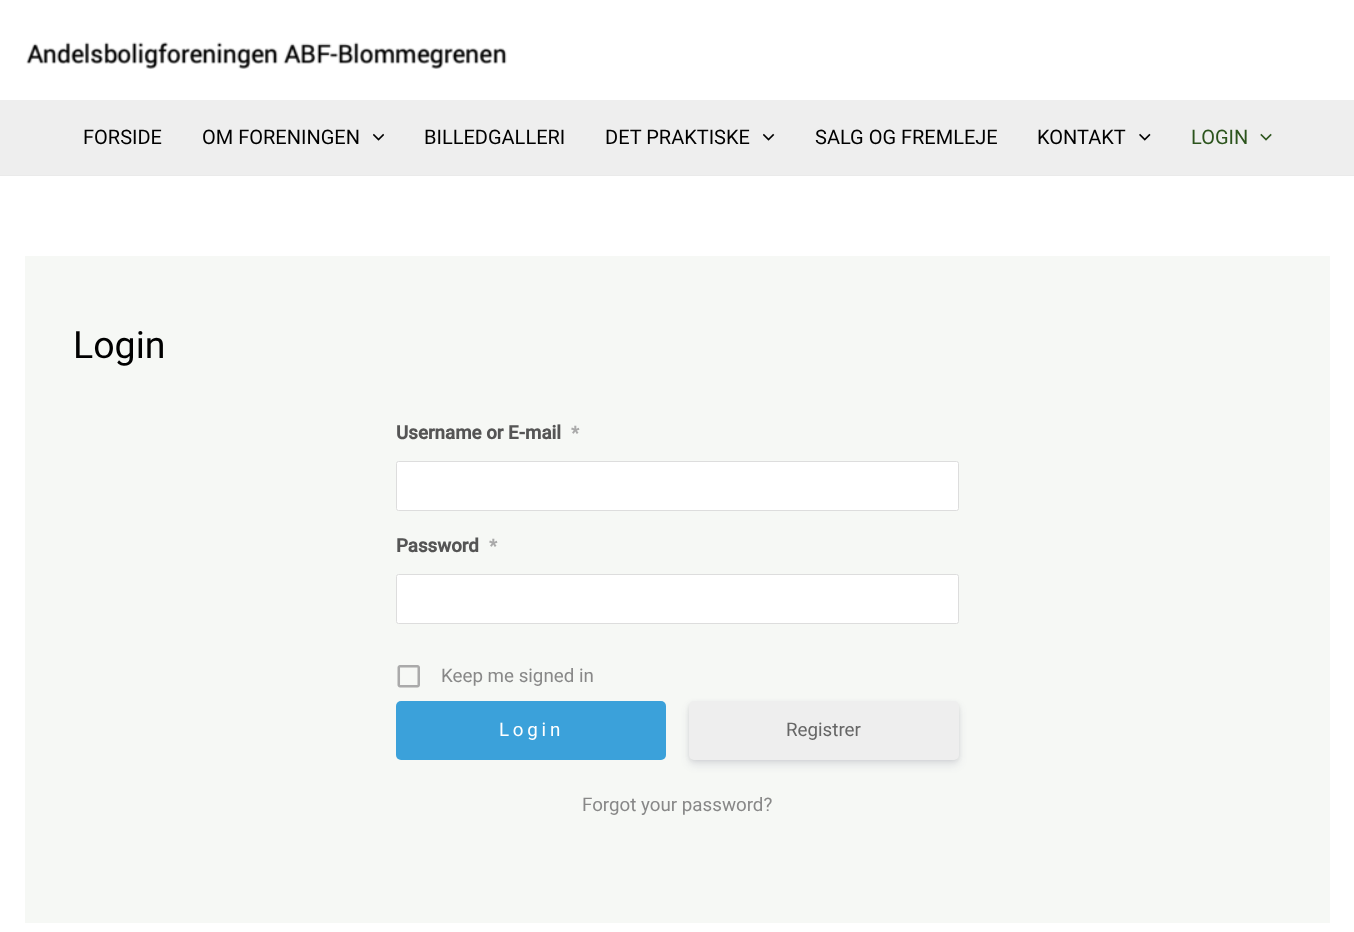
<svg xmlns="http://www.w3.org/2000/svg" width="1354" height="932">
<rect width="100%" height="100%" fill="#fff"/>
<image x="26" y="42" width="481" height="27" href="media/1.png"/>
<rect y="100" width="1354" height="75" fill="#eee"/>
<rect y="175" width="1354" height="1" fill="#eaeaea"/>
<text x="83" y="144" style="font-family:Roboto;font-size:20px;fill:#000">FORSIDE</text>
<text x="202" y="144" style="font-family:Roboto;font-size:20px;fill:#000">OM FORENINGEN</text>
<image x="373" y="133" width="11" height="8" href="media/2.png"/>
<text x="424" y="144" style="font-family:Roboto;font-size:20px;fill:#000">BILLEDGALLERI</text>
<text x="605" y="144" style="font-family:Roboto;font-size:20px;fill:#000">DET PRAKTISKE</text>
<image x="763" y="133" width="12" height="8" href="media/3.png"/>
<text x="815" y="144" style="font-family:Roboto;font-size:20px;fill:#000">SALG OG FREMLEJE</text>
<text x="1037" y="144" style="font-family:Roboto;font-size:20px;fill:#000">KONTAKT</text>
<image x="1139" y="133" width="12" height="8" href="media/4.png"/>
<text x="1191" y="144" style="font-family:Roboto;font-size:20px;fill:#2c541d">LOGIN</text>
<image x="1260" y="133" width="12" height="8" href="media/5.png"/>
<rect x="25" y="256" width="1305" height="667" fill="#f6f8f5"/>
<text x="73" y="358" style="font-family:Roboto;font-size:37.5px;fill:#000">Login</text>
<text x="396" y="439" style="font-family:Roboto;font-size:18.75px;font-weight:bold;fill:#555">Username or E-mail</text>
<text x="571" y="439" style="font-family:Roboto;font-size:18px;font-weight:bold;fill:#aaa">*</text>
<rect x="396.5" y="461.5" width="562" height="49" rx="2" fill="#fff" stroke="#ddd"/>
<text x="396" y="552" style="font-family:Roboto;font-size:18.75px;font-weight:bold;fill:#555">Password</text>
<text x="489" y="552" style="font-family:Roboto;font-size:18px;font-weight:bold;fill:#aaa">*</text>
<rect x="396.5" y="574.5" width="562" height="49" rx="2" fill="#fff" stroke="#ddd"/>
<image x="397" y="665" width="23" height="23" href="media/6.png"/>
<text x="441" y="682" style="font-family:Roboto;font-size:18.75px;fill:#888">Keep me signed in</text>
<rect x="396" y="701" width="270" height="59" rx="5" fill="#3ba1da"/>
<text x="499" y="736" style="font-family:Roboto;font-size:18.75px;letter-spacing:3.75px;fill:#fff">Login</text>
<rect x="689" y="703" width="270" height="58" rx="5" fill="#00000014" filter="blur(2px)"/>
<rect x="689" y="706" width="270" height="59" rx="5" fill="#32325d1c" filter="blur(4px)"/>
<rect x="689" y="701" width="270" height="59" rx="5" fill="#eee"/>
<text x="786" y="736" style="font-family:Roboto;font-size:18.75px;fill:#666">Registrer</text>
<text x="582" y="811" style="font-family:Roboto;font-size:18.75px;fill:#888">Forgot your password?</text>
</svg>
